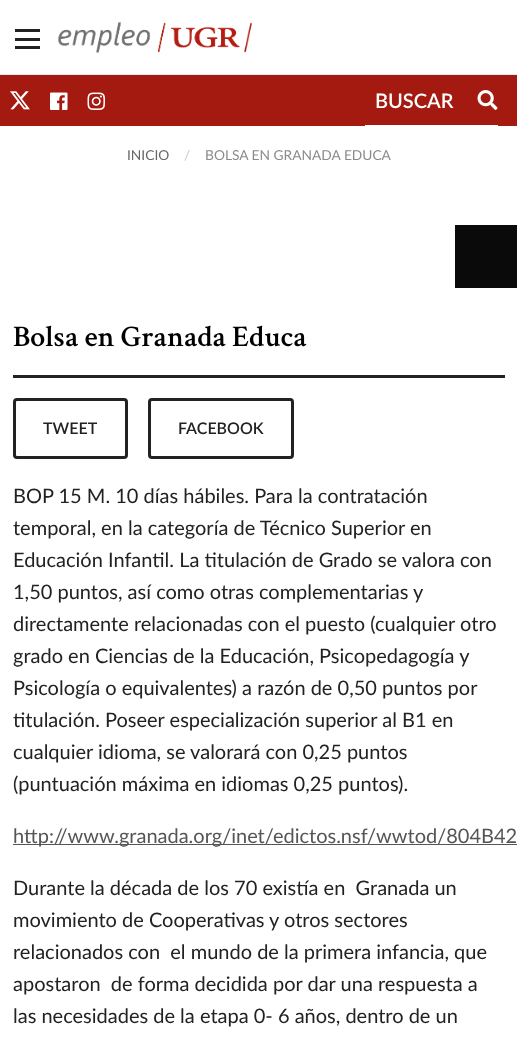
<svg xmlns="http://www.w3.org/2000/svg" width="517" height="1046">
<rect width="100%" height="100%" fill="#fff"/>
<rect x="15" y="46" width="25" height="3" fill="#212121"/>
<rect x="15" y="38" width="25" height="3" fill="#212121"/>
<rect x="15" y="29" width="25" height="3" fill="#212121"/>
<image x="58" y="21" width="195" height="32" href="media/1.png"/>
<rect y="74" width="517" height="1" fill="#eaeaea"/>
<rect y="75" width="517" height="51" fill="#a41910"/>
<image x="10" y="91" width="20" height="19" href="media/2.png"/>
<image x="50" y="92" width="18" height="18" href="media/3.png"/>
<image x="87" y="92" width="18" height="18" href="media/4.png"/>
<rect x="365" y="125" width="133" height="1" fill="#fff"/>
<text x="375" y="108" style="font-family:Lato;font-size:20px;font-weight:600;fill:#fff">BUSCAR</text>
<image x="477" y="90" width="21" height="20" href="media/5.png"/>
<text x="127" y="160" style="font-family:Lato;font-size:13.75px;fill:#666">INICIO</text>
<text x="184" y="160" style="font-family:Lato;font-size:13.75px;fill:#cacaca">/</text>
<text x="205" y="160" style="font-family:Lato;font-size:13.75px;fill:#8a8a8a">BOLSA EN GRANADA EDUCA</text>
<rect x="455" y="225" width="62" height="63" fill="#0a0a0a"/>
<text x="13" y="346" style="font-family:Crimson Text;font-size:30px;font-weight:600;fill:#000">Bolsa en Granada Educa</text>
<rect x="13" y="375" width="492" height="3" fill="#222"/>
<rect x="14.5" y="399.5" width="112" height="58" rx="2.5" fill="none" stroke="#222" stroke-width="3"/>
<text x="43" y="434" style="font-family:Lato;font-size:16px;font-weight:600;fill:#222">TWEET</text>
<rect x="149.5" y="399.5" width="143" height="58" rx="2.5" fill="none" stroke="#222" stroke-width="3"/>
<text x="178" y="434" style="font-family:Lato;font-size:16px;font-weight:600;fill:#222">FACEBOOK</text>
<text x="13" y="503" style="font-family:Lato;font-size:20px;fill:#222">BOP 15 M. 10 días hábiles. Para la contratación</text>
<text x="13" y="535" style="font-family:Lato;font-size:20px;fill:#222">temporal, en la categoría de Técnico Superior en</text>
<text x="13" y="567" style="font-family:Lato;font-size:20px;fill:#222">Educación Infantil. La titulación de Grado se valora con</text>
<text x="13" y="599" style="font-family:Lato;font-size:20px;fill:#222">1,50 puntos, así como otras complementarias y</text>
<text x="13" y="631" style="font-family:Lato;font-size:20px;fill:#222">directamente relacionadas con el puesto (cualquier otro</text>
<text x="13" y="663" style="font-family:Lato;font-size:20px;fill:#222">grado en Ciencias de la Educación, Psicopedagogía y</text>
<text x="13" y="695" style="font-family:Lato;font-size:20px;fill:#222">Psicología o equivalentes) a razón de 0,50 puntos por</text>
<text x="13" y="727" style="font-family:Lato;font-size:20px;fill:#222">titulación. Poseer especialización superior al B1 en</text>
<text x="13" y="759" style="font-family:Lato;font-size:20px;fill:#222">cualquier idioma, se valorará con 0,25 puntos</text>
<text x="13" y="791" style="font-family:Lato;font-size:20px;fill:#222">(puntuación máxima en idiomas 0,25 puntos).</text>
<rect x="13" y="844" width="504" height="1" fill="#555"/>
<text x="13" y="843" style="font-family:Lato;font-size:20px;fill:#555">http://www.granada.org/inet/edictos.nsf/wwtod/804B42</text>
<text x="13" y="895" style="font-family:Lato;font-size:20px;fill:#222" xml:space="preserve">Durante la década de los 70 existía en  Granada un</text>
<text x="13" y="927" style="font-family:Lato;font-size:20px;fill:#222">movimiento de Cooperativas y otros sectores</text>
<text x="13" y="959" style="font-family:Lato;font-size:20px;fill:#222" xml:space="preserve">relacionados con  el mundo de la primera infancia, que</text>
<text x="13" y="991" style="font-family:Lato;font-size:20px;fill:#222" xml:space="preserve">apostaron  de forma decidida por dar una respuesta a</text>
<text x="13" y="1023" style="font-family:Lato;font-size:20px;fill:#222">las necesidades de la etapa 0- 6 años, dentro de un</text>
</svg>
